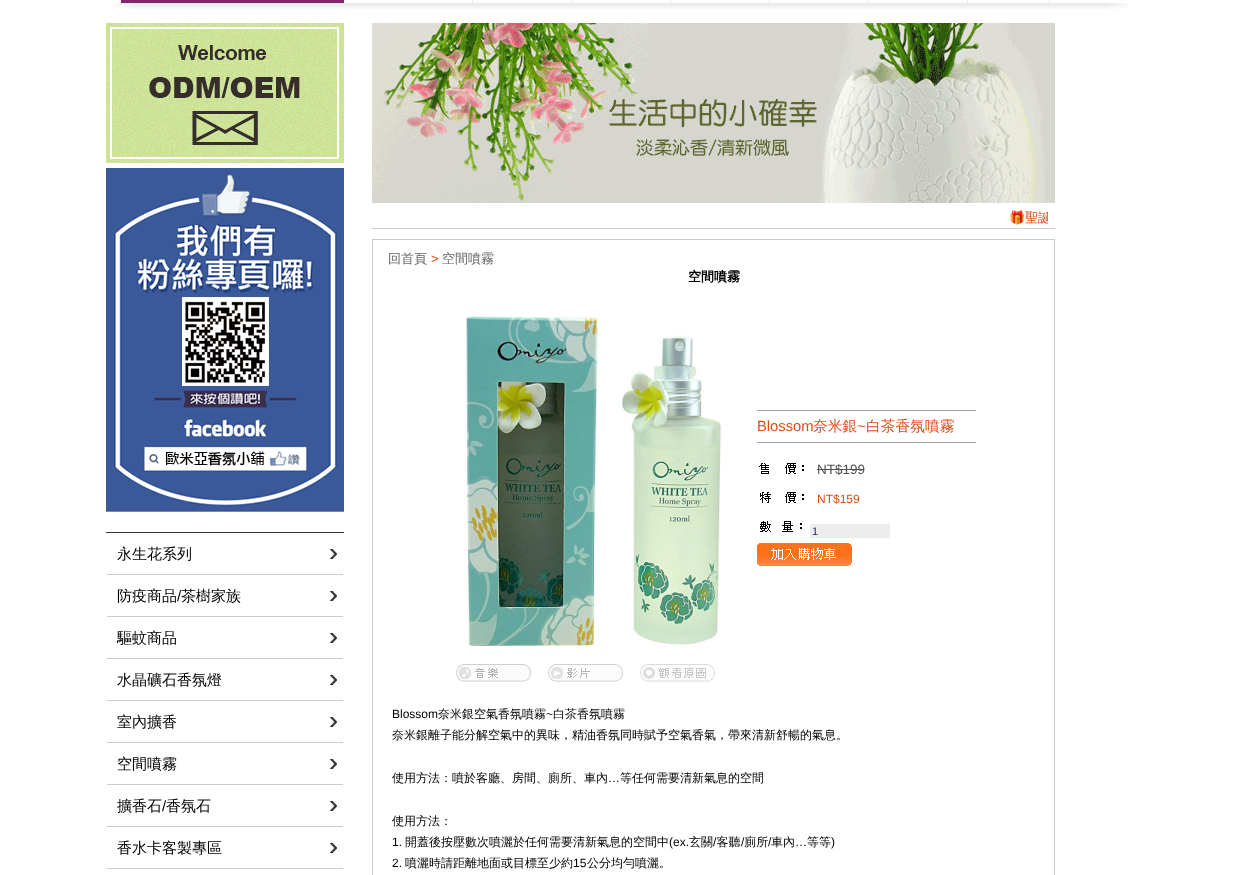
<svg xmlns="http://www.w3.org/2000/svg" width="1242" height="875">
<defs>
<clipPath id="clip1"><rect x="372" y="208" width="676" height="20"/></clipPath>
</defs>
<rect width="100%" height="100%" fill="#fff"/>
<image x="111" y="3" width="1018" height="6" href="media/1.png"/>
<rect x="121" width="223" height="3" fill="#84256c"/>
<rect x="472" width="1" height="3" fill="#e8e8e8"/>
<rect x="571" width="1" height="3" fill="#e8e8e8"/>
<rect x="670" width="1" height="3" fill="#e8e8e8"/>
<rect x="769" width="1" height="3" fill="#e8e8e8"/>
<rect x="868" width="1" height="3" fill="#e8e8e8"/>
<rect x="967" width="1" height="3" fill="#e8e8e8"/>
<rect x="1049" width="1" height="3" fill="#e8e8e8"/>
<image x="106" y="23" width="238" height="140" href="media/2.png"/>
<image x="106" y="168" width="238" height="344" href="media/3.png"/>
<rect x="106" y="532" width="238" height="1" fill="#333"/>
<image x="330" y="549" width="7" height="10" href="media/4.png"/>
<rect x="107" y="574" width="236" height="1" fill="#ccc"/>
<text x="117" y="559" style="font-family:WenQuanYi Zen Hei;font-size:15px;font-weight:500;fill:#000">永生花系列</text>
<image x="330" y="591" width="7" height="10" href="media/4.png"/>
<rect x="107" y="616" width="236" height="1" fill="#ccc"/>
<text x="117" y="601" style="font-family:WenQuanYi Zen Hei;font-size:15px;font-weight:500;fill:#000">防疫商品</text>
<text x="177" y="601" style="font-family:Liberation Sans;font-size:15px;fill:#000">/</text>
<text x="181" y="601" style="font-family:WenQuanYi Zen Hei;font-size:15px;font-weight:500;fill:#000">茶樹家族</text>
<image x="330" y="633" width="7" height="10" href="media/4.png"/>
<rect x="107" y="658" width="236" height="1" fill="#ccc"/>
<text x="117" y="643" style="font-family:WenQuanYi Zen Hei;font-size:15px;font-weight:500;fill:#000">驅蚊商品</text>
<image x="330" y="675" width="7" height="10" href="media/4.png"/>
<rect x="107" y="700" width="236" height="1" fill="#ccc"/>
<text x="117" y="685" style="font-family:WenQuanYi Zen Hei;font-size:15px;font-weight:500;fill:#000">水晶礦石香氛燈</text>
<image x="330" y="717" width="7" height="10" href="media/4.png"/>
<rect x="107" y="742" width="236" height="1" fill="#ccc"/>
<text x="117" y="727" style="font-family:WenQuanYi Zen Hei;font-size:15px;font-weight:500;fill:#000">室內擴香</text>
<image x="330" y="759" width="7" height="10" href="media/4.png"/>
<rect x="107" y="784" width="236" height="1" fill="#ccc"/>
<text x="117" y="769" style="font-family:WenQuanYi Zen Hei;font-size:15px;font-weight:500;fill:#000">空間噴霧</text>
<image x="330" y="801" width="7" height="10" href="media/4.png"/>
<rect x="107" y="826" width="236" height="1" fill="#ccc"/>
<text x="117" y="811" style="font-family:WenQuanYi Zen Hei;font-size:15px;font-weight:500;fill:#000">擴香石</text>
<text x="162" y="811" style="font-family:Liberation Sans;font-size:15px;fill:#000">/</text>
<text x="166" y="811" style="font-family:WenQuanYi Zen Hei;font-size:15px;font-weight:500;fill:#000">香氛石</text>
<image x="330" y="843" width="7" height="10" href="media/4.png"/>
<rect x="107" y="868" width="236" height="1" fill="#ccc"/>
<text x="117" y="853" style="font-family:WenQuanYi Zen Hei;font-size:15px;font-weight:500;fill:#000">香水卡客製專區</text>
<image x="372" y="23" width="683" height="180" href="media/5.png"/>
<rect x="372" y="228" width="683" height="1" fill="#ccc"/>
<text x="1009" y="222" style="font-family:Noto Color Emoji;font-size:13px;fill:#df4c18">🎁</text>
<g clip-path="url(#clip1)">
<text x="1025" y="222" style="font-family:WenQuanYi Zen Hei;font-size:13px;font-weight:500;fill:#df4c18">聖誕</text>
</g>
<rect x="372.5" y="239.5" width="682" height="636" fill="none" stroke="#ccc"/>
<text x="388" y="263" style="font-family:WenQuanYi Zen Hei;font-size:13px;font-weight:500;fill:#666">回首頁</text>
<text x="431" y="263" style="font-family:Liberation Sans;font-size:13px;fill:#df4c18">&gt;</text>
<text x="442" y="263" style="font-family:WenQuanYi Zen Hei;font-size:13px;font-weight:500;fill:#666">空間噴霧</text>
<text x="688" y="281" style="font-family:WenQuanYi Zen Hei;font-size:13px;font-weight:bold;fill:#000">空間噴霧</text>
<image x="463" y="316" width="259" height="332" href="media/6.png"/>
<image x="456" y="664" width="75" height="18" href="media/7.png"/>
<image x="548" y="664" width="75" height="18" href="media/8.png"/>
<image x="640" y="664" width="75" height="18" href="media/9.png"/>
<rect x="757" y="410" width="220" height="1" fill="#9f9f9f"/>
<rect x="976" y="410" width="1" height="1" fill="#eee"/>
<text x="757" y="431" style="font-family:Liberation Sans;font-size:14.75px;fill:#df4c18">Blossom</text>
<text x="813" y="431" style="font-family:WenQuanYi Zen Hei;font-size:14.75px;font-weight:500;fill:#df4c18">奈米銀</text>
<text x="857" y="431" style="font-family:Liberation Sans;font-size:14.75px;fill:#df4c18">~</text>
<text x="866" y="431" style="font-family:WenQuanYi Zen Hei;font-size:14.75px;font-weight:500;fill:#df4c18">白茶香氛噴霧</text>
<rect x="757" y="442" width="220" height="1" fill="#9f9f9f"/>
<rect x="976" y="442" width="1" height="1" fill="#eee"/>
<image x="759" y="463" width="45" height="11" href="media/10.png"/>
<text x="817" y="474" style="font-family:Liberation Sans;font-size:13.5px;fill:#515151">NT$199</text>
<rect x="817" y="469" width="47" height="1" fill="#515151"/>
<image x="760" y="492" width="44" height="11" href="media/11.png"/>
<text x="817" y="503" style="font-family:Liberation Sans;font-size:12px;fill:#df4c18">NT$159</text>
<image x="760" y="521" width="42" height="11" href="media/12.png"/>
<rect x="810" y="524" width="80" height="14" fill="#ecedec"/>
<text x="812" y="535" style="font-family:Liberation Sans;font-size:11px;fill:#0e1f69">1</text>
<image x="757" y="543" width="95" height="23" href="media/13.png"/>
<text x="392" y="718" style="font-family:Liberation Sans;font-size:12px;fill:#000">Blossom</text>
<text x="438" y="718" style="font-family:WenQuanYi Zen Hei;font-size:12px;font-weight:500;fill:#000">奈米銀空氣香氛噴霧</text>
<text x="546" y="718" style="font-family:Liberation Sans;font-size:12px;fill:#000">~</text>
<text x="553" y="718" style="font-family:WenQuanYi Zen Hei;font-size:12px;font-weight:500;fill:#000">白茶香氛噴霧</text>
<text x="392" y="739" style="font-family:WenQuanYi Zen Hei;font-size:12px;font-weight:500;fill:#000">奈米銀離子能分解空氣中的異味，精油香氛同時賦予空氣香氣，帶來清新舒暢的氣息。</text>
<text x="392" y="782" style="font-family:WenQuanYi Zen Hei;font-size:12px;font-weight:500;fill:#000">使用方法：噴於客廳、房間、廁所、車內</text>
<text x="608" y="782" style="font-family:Liberation Sans;font-size:12px;fill:#000">…</text>
<text x="620" y="782" style="font-family:WenQuanYi Zen Hei;font-size:12px;font-weight:500;fill:#000">等任何需要清新氣息的空間</text>
<text x="392" y="825" style="font-family:WenQuanYi Zen Hei;font-size:12px;font-weight:500;fill:#000">使用方法：</text>
<text x="392" y="846" style="font-family:Liberation Sans;font-size:12px;fill:#000">1.</text>
<text x="405" y="846" style="font-family:WenQuanYi Zen Hei;font-size:12px;font-weight:500;fill:#000">開蓋後按壓數次噴灑於任何需要清新氣息的空間中</text>
<text x="669" y="846" style="font-family:Liberation Sans;font-size:12px;fill:#000">(ex.</text>
<text x="689" y="846" style="font-family:WenQuanYi Zen Hei;font-size:12px;font-weight:500;fill:#000">玄關 客聽 廁所</text>
<text x="768" y="846" style="font-family:Liberation Sans;font-size:12px;fill:#000">/</text>
<text x="771" y="846" style="font-family:WenQuanYi Zen Hei;font-size:12px;font-weight:500;fill:#000">車內</text>
<text x="807" y="846" style="font-family:WenQuanYi Zen Hei;font-size:12px;font-weight:500;fill:#000">等等</text>
<text x="713" y="846" style="font-family:Liberation Sans;font-size:12px;fill:#000">/</text>
<text x="741" y="846" style="font-family:Liberation Sans;font-size:12px;fill:#000">/</text>
<text x="795" y="846" style="font-family:Liberation Sans;font-size:12px;fill:#000">…</text>
<text x="831" y="846" style="font-family:Liberation Sans;font-size:12px;fill:#000">)</text>
<text x="392" y="867" style="font-family:Liberation Sans;font-size:12px;fill:#000">2.</text>
<text x="405" y="867" style="font-family:WenQuanYi Zen Hei;font-size:12px;font-weight:500;fill:#000">噴灑時請距離地面或目標至少約</text>
<text x="573" y="867" style="font-family:Liberation Sans;font-size:12px;fill:#000">15</text>
<text x="587" y="867" style="font-family:WenQuanYi Zen Hei;font-size:12px;font-weight:500;fill:#000">公分均勻噴灑。</text>
</svg>
